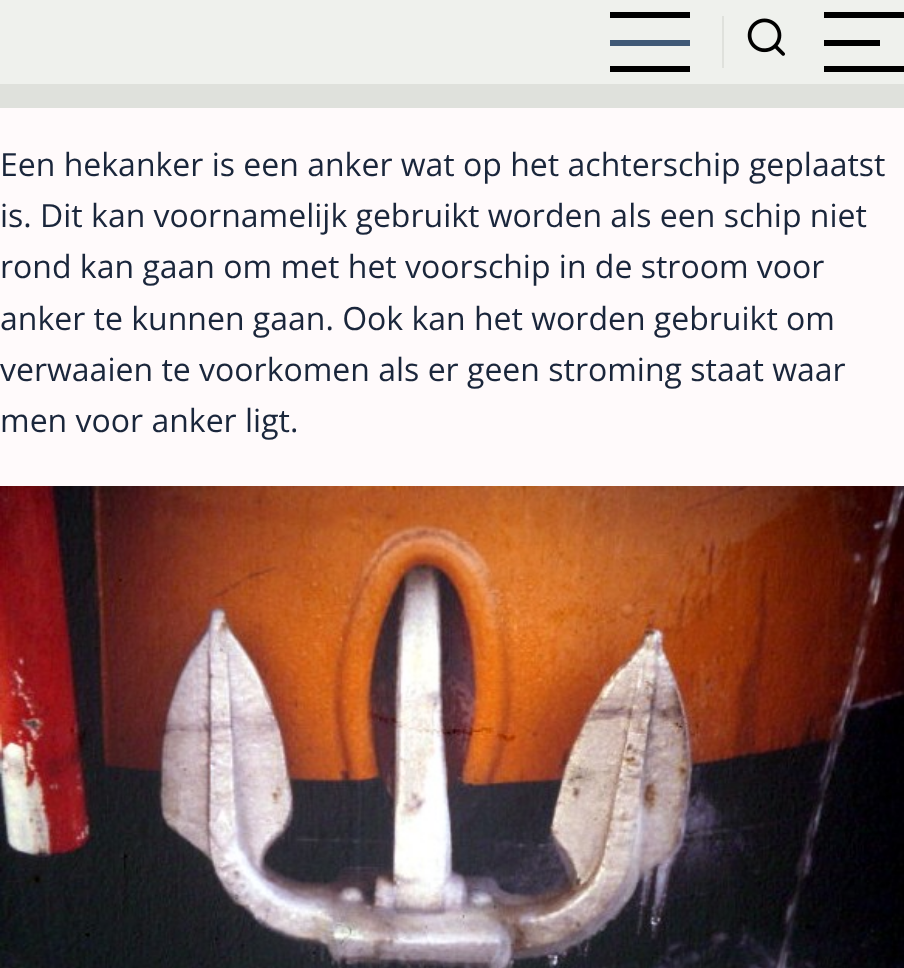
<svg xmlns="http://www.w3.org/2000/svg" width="904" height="968">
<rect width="100%" height="100%" fill="#fffafb"/>
<rect width="904" height="84" fill="#eff1ed"/>
<rect x="610" y="12" width="80" height="6" fill="#000"/>
<rect x="610" y="40" width="80" height="6" fill="#405976"/>
<rect x="610" y="66" width="80" height="6" fill="#000"/>
<rect x="722" y="16" width="2" height="52" fill="#dfe1dc"/>
<image x="747" y="18" width="38" height="38" href="media/1.png"/>
<rect x="824" y="12" width="80" height="6" fill="#000"/>
<rect x="824" y="40" width="56" height="6" fill="#000"/>
<rect x="824" y="66" width="80" height="6" fill="#000"/>
<rect y="84" width="904" height="24" fill="#dfe1dc"/>
<text x="0" y="176" style="font-family:Open Sans;font-size:32px;fill:#1a263b">Een hekanker is een anker wat op het achterschip geplaatst</text>
<text x="0" y="227" style="font-family:Open Sans;font-size:32px;fill:#1a263b">is. Dit kan voornamelijk gebruikt worden als een schip niet</text>
<text x="0" y="278" style="font-family:Open Sans;font-size:32px;fill:#1a263b">rond kan gaan om met het voorschip in de stroom voor</text>
<text x="0" y="330" style="font-family:Open Sans;font-size:32px;fill:#1a263b">anker te kunnen gaan. Ook kan het worden gebruikt om</text>
<text x="0" y="381" style="font-family:Open Sans;font-size:32px;fill:#1a263b">verwaaien te voorkomen als er geen stroming staat waar</text>
<text x="0" y="432" style="font-family:Open Sans;font-size:32px;fill:#1a263b">men voor anker ligt.</text>
<image x="0" y="486" width="904" height="482" href="media/2.png"/>
</svg>
